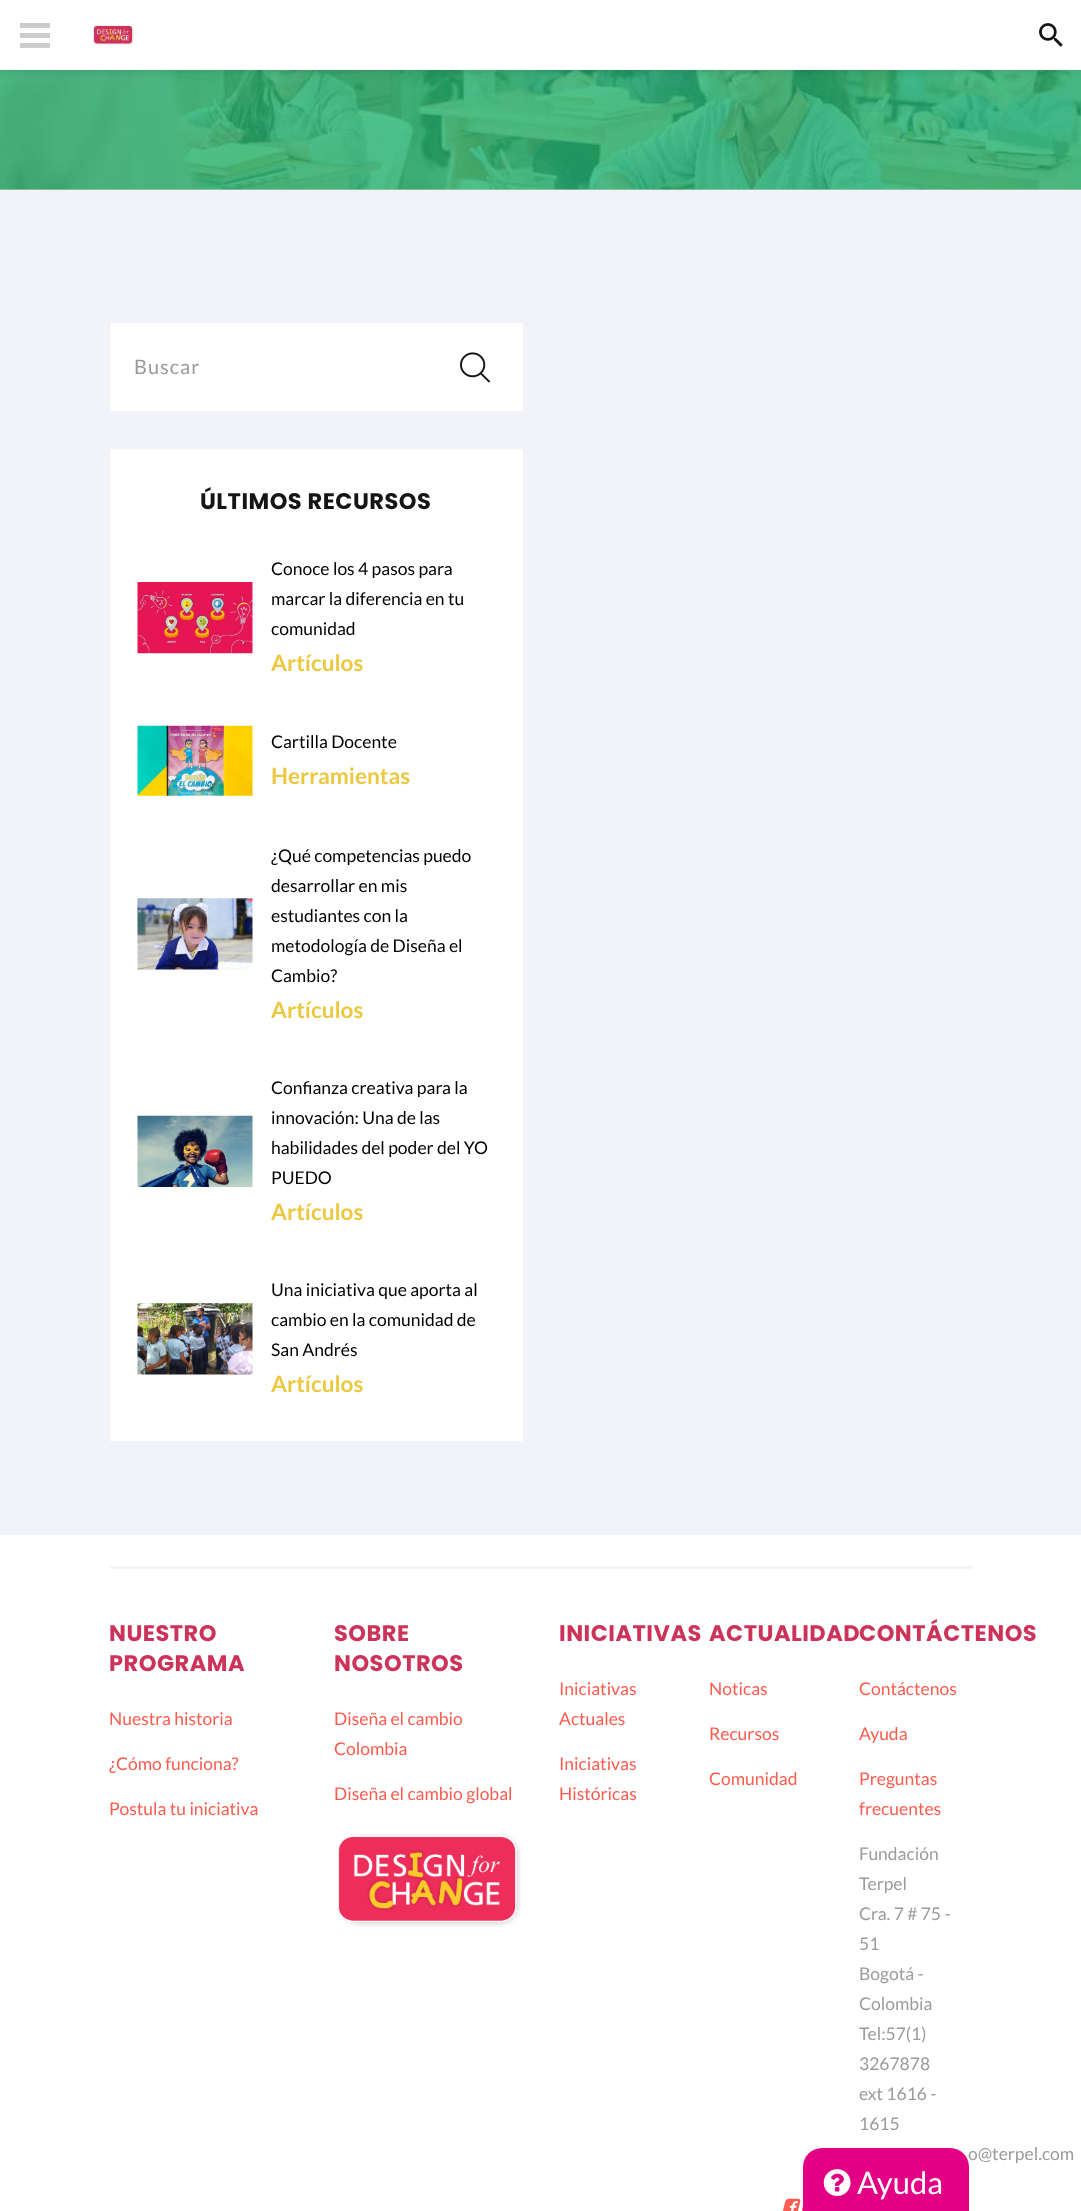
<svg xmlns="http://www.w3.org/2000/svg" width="1081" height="2211">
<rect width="100%" height="100%" fill="#fff"/>
<rect y="189" width="1081" height="1" fill="#ccc"/>
<image x="0" y="70" width="1081" height="120" href="media/3.png"/>
<rect width="1081" height="70" fill="#00000026" filter="blur(4.5px)"/>
<rect width="1081" height="70" fill="#fff"/>
<rect x="20" y="33" width="30" height="5" fill="#ccc"/>
<rect x="20" y="23" width="30" height="5" fill="#ccc"/>
<rect x="20" y="43" width="30" height="5" fill="#ccc"/>
<image x="93" y="25" width="41" height="20" href="media/1.png"/>
<image x="1039" y="23" width="24" height="24" href="media/2.png"/>
<rect y="190" width="1081" height="1345" fill="#f2f3f8"/>
<rect x="110" y="323" width="413" height="88" fill="#fff"/>
<text x="134" y="374" style="font-family:Lato;font-size:20px;letter-spacing:1px;fill:#9b9b9b">Buscar</text>
<image x="460" y="352" width="30" height="31" href="media/4.png"/>
<rect x="110" y="449" width="413" height="992" fill="#fff"/>
<text x="200" y="509" style="font-family:Poppins;font-size:22.5px;font-weight:bold;letter-spacing:0.5px;fill:#151515">ÚLTIMOS RECURSOS</text>
<image x="137" y="582" width="116" height="72" href="media/5.png"/>
<text x="271" y="575" style="font-family:Lato;font-size:17.5px;fill:#000">Conoce los 4 pasos para</text>
<text x="271" y="605" style="font-family:Lato;font-size:17.5px;fill:#000">marcar la diferencia en tu</text>
<text x="271" y="635" style="font-family:Lato;font-size:17.5px;fill:#000">comunidad</text>
<text x="271" y="671" style="font-family:Lato;font-size:22.5px;font-weight:bold;fill:#ecc840">Artículos</text>
<image x="137" y="725" width="116" height="71" href="media/6.png"/>
<text x="271" y="748" style="font-family:Lato;font-size:17.5px;fill:#000">Cartilla Docente</text>
<text x="271" y="784" style="font-family:Lato;font-size:22.5px;font-weight:bold;fill:#ecc840">Herramientas</text>
<image x="137" y="898" width="116" height="72" href="media/7.png"/>
<text x="271" y="862" style="font-family:Lato;font-size:17.5px;fill:#000">¿Qué competencias puedo</text>
<text x="271" y="892" style="font-family:Lato;font-size:17.5px;fill:#000">desarrollar en mis</text>
<text x="271" y="922" style="font-family:Lato;font-size:17.5px;fill:#000">estudiantes con la</text>
<text x="271" y="952" style="font-family:Lato;font-size:17.5px;fill:#000">metodología de Diseña el</text>
<text x="271" y="982" style="font-family:Lato;font-size:17.5px;fill:#000">Cambio?</text>
<text x="271" y="1018" style="font-family:Lato;font-size:22.5px;font-weight:bold;fill:#ecc840">Artículos</text>
<image x="137" y="1115" width="116" height="72" href="media/8.png"/>
<text x="271" y="1094" style="font-family:Lato;font-size:17.5px;fill:#000">Confianza creativa para la</text>
<text x="271" y="1124" style="font-family:Lato;font-size:17.5px;fill:#000">innovación: Una de las</text>
<text x="271" y="1154" style="font-family:Lato;font-size:17.5px;fill:#000">habilidades del poder del YO</text>
<text x="271" y="1184" style="font-family:Lato;font-size:17.5px;fill:#000">PUEDO</text>
<text x="271" y="1220" style="font-family:Lato;font-size:22.5px;font-weight:bold;fill:#ecc840">Artículos</text>
<image x="137" y="1303" width="116" height="72" href="media/9.png"/>
<text x="271" y="1296" style="font-family:Lato;font-size:17.5px;fill:#000">Una iniciativa que aporta al</text>
<text x="271" y="1326" style="font-family:Lato;font-size:17.5px;fill:#000">cambio en la comunidad de</text>
<text x="271" y="1356" style="font-family:Lato;font-size:17.5px;fill:#000">San Andrés</text>
<text x="271" y="1392" style="font-family:Lato;font-size:22.5px;font-weight:bold;fill:#ecc840">Artículos</text>
<rect x="110" y="1566" width="863" height="3" fill="#f5f5f5"/>
<text x="109" y="1641" style="font-family:Poppins;font-size:22.5px;font-weight:bold;letter-spacing:0.5px;fill:#cd3259">NUESTRO</text>
<text x="109" y="1671" style="font-family:Poppins;font-size:22.5px;font-weight:bold;letter-spacing:0.5px;fill:#cd3259">PROGRAMA</text>
<text x="109" y="1725" style="font-family:Lato;font-size:17.5px;fill:#fc5b4e">Nuestra historia</text>
<text x="109" y="1770" style="font-family:Lato;font-size:17.5px;fill:#fc5b4e">¿Cómo funciona?</text>
<text x="109" y="1815" style="font-family:Lato;font-size:17.5px;fill:#fc5b4e">Postula tu iniciativa</text>
<text x="334" y="1641" style="font-family:Poppins;font-size:22.5px;font-weight:bold;letter-spacing:0.5px;fill:#cd3259">SOBRE</text>
<text x="334" y="1671" style="font-family:Poppins;font-size:22.5px;font-weight:bold;letter-spacing:0.5px;fill:#cd3259">NOSOTROS</text>
<text x="334" y="1725" style="font-family:Lato;font-size:17.5px;fill:#fc5b4e">Diseña el cambio</text>
<text x="334" y="1755" style="font-family:Lato;font-size:17.5px;fill:#fc5b4e">Colombia</text>
<text x="334" y="1800" style="font-family:Lato;font-size:17.5px;fill:#fc5b4e">Diseña el cambio global</text>
<image x="338" y="1834" width="183" height="93" href="media/10.png"/>
<text x="559" y="1641" style="font-family:Poppins;font-size:22.5px;font-weight:bold;letter-spacing:0.5px;fill:#cd3259">INICIATIVAS</text>
<text x="559" y="1695" style="font-family:Lato;font-size:17.5px;fill:#fc5b4e">Iniciativas</text>
<text x="559" y="1725" style="font-family:Lato;font-size:17.5px;fill:#fc5b4e">Actuales</text>
<text x="559" y="1770" style="font-family:Lato;font-size:17.5px;fill:#fc5b4e">Iniciativas</text>
<text x="559" y="1800" style="font-family:Lato;font-size:17.5px;fill:#fc5b4e">Históricas</text>
<text x="709" y="1641" style="font-family:Poppins;font-size:22.5px;font-weight:bold;letter-spacing:0.5px;fill:#cd3259">ACTUALIDAD</text>
<text x="709" y="1695" style="font-family:Lato;font-size:17.5px;fill:#fc5b4e">Noticas</text>
<text x="709" y="1740" style="font-family:Lato;font-size:17.5px;fill:#fc5b4e">Recursos</text>
<text x="709" y="1785" style="font-family:Lato;font-size:17.5px;fill:#fc5b4e">Comunidad</text>
<text x="859" y="1641" style="font-family:Poppins;font-size:22.5px;font-weight:bold;letter-spacing:0.5px;fill:#cd3259">CONTÁCTENOS</text>
<text x="859" y="1695" style="font-family:Lato;font-size:17.5px;fill:#fc5b4e">Contáctenos</text>
<text x="859" y="1740" style="font-family:Lato;font-size:17.5px;fill:#fc5b4e">Ayuda</text>
<text x="859" y="1785" style="font-family:Lato;font-size:17.5px;fill:#fc5b4e">Preguntas</text>
<text x="859" y="1815" style="font-family:Lato;font-size:17.5px;fill:#fc5b4e">frecuentes</text>
<text x="859" y="1860" style="font-family:Lato;font-size:17.5px;fill:#9b9b9b">Fundación</text>
<text x="859" y="1890" style="font-family:Lato;font-size:17.5px;fill:#9b9b9b">Terpel</text>
<text x="859" y="1920" style="font-family:Lato;font-size:17.5px;fill:#9b9b9b">Cra. 7 # 75 -</text>
<text x="859" y="1950" style="font-family:Lato;font-size:17.5px;fill:#9b9b9b">51</text>
<text x="859" y="1980" style="font-family:Lato;font-size:17.5px;fill:#9b9b9b">Bogotá -</text>
<text x="859" y="2010" style="font-family:Lato;font-size:17.5px;fill:#9b9b9b">Colombia</text>
<text x="859" y="2040" style="font-family:Lato;font-size:17.5px;fill:#9b9b9b">Tel:57(1)</text>
<text x="859" y="2070" style="font-family:Lato;font-size:17.5px;fill:#9b9b9b">3267878</text>
<text x="859" y="2100" style="font-family:Lato;font-size:17.5px;fill:#9b9b9b">ext 1616 -</text>
<text x="859" y="2130" style="font-family:Lato;font-size:17.5px;fill:#9b9b9b">1615</text>
<text x="968" y="2160" style="font-family:Lato;font-size:17.5px;fill:#9b9b9b">o@terpel.com</text>
<path d="M822 2148h128c10.5 0 19 8.5 19 19v44h-166v-44c0-10.5 8.5-19 19-19z" fill="#e40084"/>
<image x="823" y="2169" width="28" height="27" href="media/11.png"/>
<text x="857" y="2194" style="font-family:Lato;font-size:31px;fill:#fff">Ayuda</text>
<image x="782" y="2198" width="19" height="13" href="media/12.png"/>
<image x="802" y="2205" width="1" height="6" href="media/13.png"/>
</svg>
